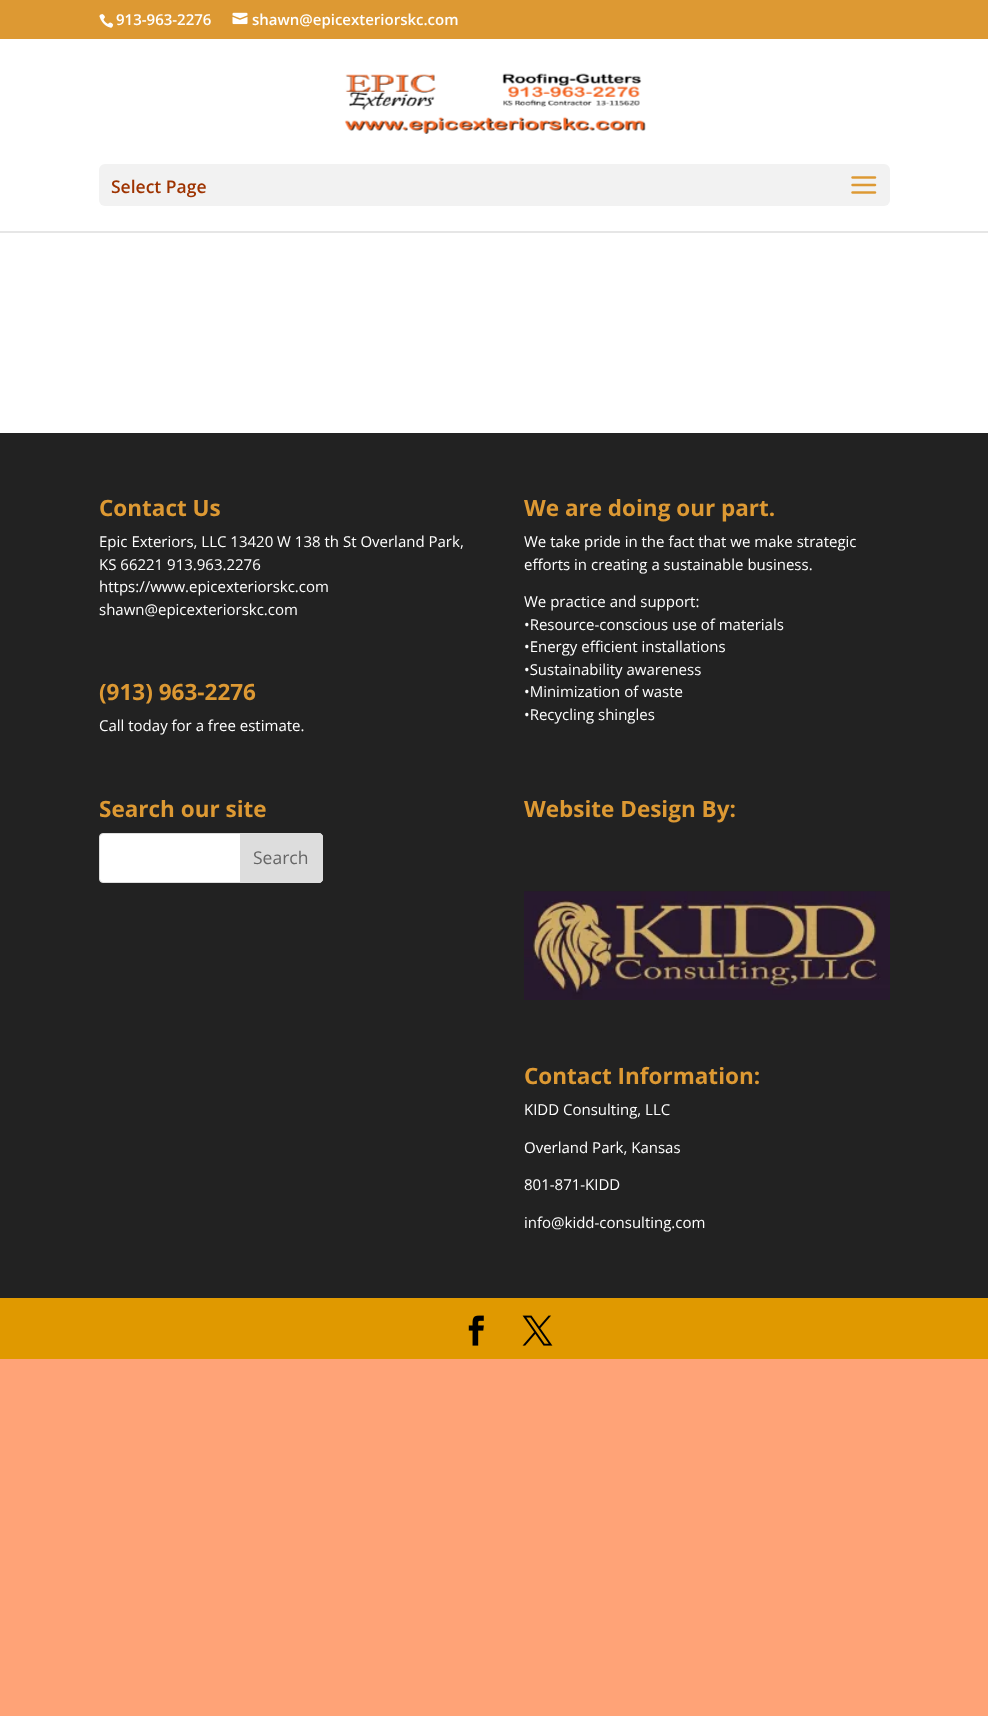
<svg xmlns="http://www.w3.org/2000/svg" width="988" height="1716">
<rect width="100%" height="100%" fill="#ffa377"/>
<rect width="988" height="39" fill="#d93"/>
<image x="99" y="14" width="15" height="14" href="media/1.png"/>
<text x="116" y="25" style="font-family:Open Sans;font-size:15px;font-weight:600;fill:#fff">913-963-2276</text>
<image x="232" y="12" width="16" height="13" href="media/2.png"/>
<text x="252" y="25" style="font-family:Open Sans;font-size:15px;font-weight:600;fill:#fff">shawn@epicexteriorskc.com</text>
<path d="M0 231v2h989v-193v191z" fill="#e6e6e6"/>
<rect y="39" width="988" height="192" fill="#fff"/>
<image x="344" y="73" width="302" height="61" href="media/3.png"/>
<rect x="99" y="164" width="791" height="42" rx="6" fill="#f2f2f2"/>
<text x="111" y="193" style="font-family:Open Sans;font-size:17.5px;font-weight:600;fill:#9e3300">Select Page</text>
<image x="851" y="176" width="26" height="18" href="media/4.png"/>
<rect y="233" width="988" height="200" fill="#fff"/>
<rect y="433" width="988" height="865" fill="#222"/>
<text x="99" y="516" style="font-family:Open Sans;font-size:22.5px;font-weight:bold;fill:#d93">Contact Us</text>
<text x="99" y="547" style="font-family:Open Sans;font-size:15px;fill:#fff">Epic Exteriors, LLC 13420 W 138 th St Overland Park,</text>
<text x="99" y="570" style="font-family:Open Sans;font-size:15px;fill:#fff">KS 66221 913.963.2276</text>
<text x="99" y="592" style="font-family:Open Sans;font-size:15px;fill:#fff">https://www.epicexteriorskc.com</text>
<text x="99" y="615" style="font-family:Open Sans;font-size:15px;fill:#fff">shawn@epicexteriorskc.com</text>
<text x="99" y="700" style="font-family:Open Sans;font-size:22.5px;font-weight:bold;fill:#d93">(913) 963-2276</text>
<text x="99" y="731" style="font-family:Open Sans;font-size:15px;fill:#fff">Call today for a free estimate.</text>
<text x="524" y="516" style="font-family:Open Sans;font-size:22.5px;font-weight:bold;fill:#d93">We are doing our part.</text>
<text x="524" y="547" style="font-family:Open Sans;font-size:15px;fill:#fff">We take pride in the fact that we make strategic</text>
<text x="524" y="570" style="font-family:Open Sans;font-size:15px;fill:#fff">efforts in creating a sustainable business.</text>
<text x="524" y="607" style="font-family:Open Sans;font-size:15px;fill:#fff">We practice and support:</text>
<text x="524" y="630" style="font-family:Open Sans;font-size:15px;fill:#fff">•Resource-conscious use of materials</text>
<text x="524" y="652" style="font-family:Open Sans;font-size:15px;fill:#fff">•Energy efficient installations</text>
<text x="524" y="675" style="font-family:Open Sans;font-size:15px;fill:#fff">•Sustainability awareness</text>
<text x="524" y="697" style="font-family:Open Sans;font-size:15px;fill:#fff">•Minimization of waste</text>
<text x="524" y="720" style="font-family:Open Sans;font-size:15px;fill:#fff">•Recycling shingles</text>
<text x="99" y="817" style="font-family:Open Sans;font-size:22.5px;font-weight:bold;fill:#d93">Search our site</text>
<rect x="99.5" y="833.5" width="223" height="49" rx="3.5" fill="#fff" stroke="#ddd"/>
<path d="M240.5 833.5h78.5c2 0 3.5 1.5 3.5 3.5v42c0 2-1.5 3.5-3.5 3.5h-78.5z" fill="#ddd" stroke="#ddd"/>
<text x="253" y="864" style="font-family:Open Sans;font-size:17.5px;fill:#666">Search</text>
<text x="524" y="817" style="font-family:Open Sans;font-size:22.5px;font-weight:bold;fill:#d93">Website Design By:</text>
<image x="524" y="891" width="366" height="109" href="media/5.png"/>
<text x="524" y="1084" style="font-family:Open Sans;font-size:22.5px;font-weight:bold;fill:#d93">Contact Information:</text>
<text x="524" y="1115" style="font-family:Open Sans;font-size:15px;fill:#fff">KIDD Consulting, LLC</text>
<text x="524" y="1153" style="font-family:Open Sans;font-size:15px;fill:#fff">Overland Park, Kansas</text>
<text x="524" y="1190" style="font-family:Open Sans;font-size:15px;fill:#fff">801-871-KIDD</text>
<text x="524" y="1228" style="font-family:Open Sans;font-size:15px;fill:#fff">info@kidd-consulting.com</text>
<rect y="1298" width="988" height="61" fill="#e09900"/>
<image x="468" y="1315" width="16" height="31" href="media/6.png"/>
<image x="522" y="1315" width="31" height="31" href="media/7.png"/>
</svg>
